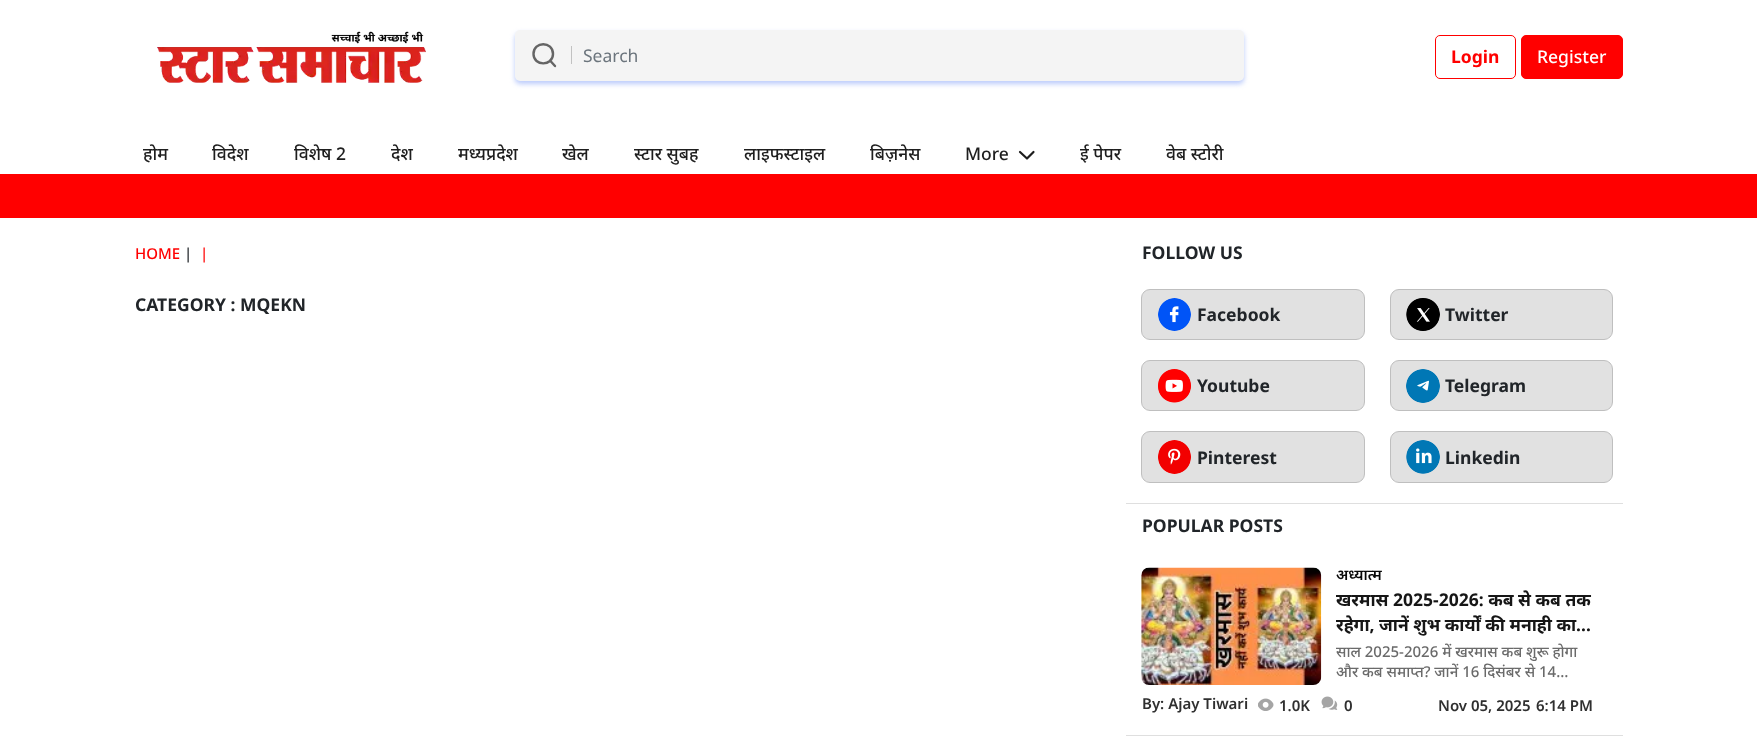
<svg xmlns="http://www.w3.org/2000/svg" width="1757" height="744">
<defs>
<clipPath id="clip1"><rect x="1336" y="588" width="257" height="50"/></clipPath>
</defs>
<rect width="100%" height="100%" fill="#fff"/>
<image x="157" y="31" width="269" height="52" href="media/1.png"/>
<rect x="515" y="33" width="729" height="51" rx="5" fill="#bbcbfb" filter="blur(2.5px)"/>
<rect x="515" y="30" width="729" height="51" rx="5" fill="#f4f4f4"/>
<path d="M555 66l-5-5.5m3-6.5c0 12.5-19.5 12.5-19.5 0c0-13 19.5-13 19.5 0z" fill="none" stroke="#656565" stroke-width="2.4" stroke-linecap="round" stroke-linejoin="round"/>
<rect x="571" y="46" width="1" height="18" fill="#c2c2c2"/>
<text x="583" y="62" style="font-family:Noto Sans;font-size:17.5px;fill:#6c757d">Search</text>
<rect x="1435.5" y="35.5" width="80" height="43" rx="4.5" fill="none" stroke="#f00"/>
<text x="1451" y="63" style="font-family:Noto Sans;font-size:17.5px;font-weight:bold;fill:#f00">Login</text>
<rect x="1521.5" y="35.5" width="101" height="43" rx="4.5" fill="#f00" stroke="#f00"/>
<text x="1537" y="63" style="font-family:Noto Sans;font-size:17.5px;font-weight:500;fill:#fff">Register</text>
<text x="143" y="160" style="font-family:Noto Sans;font-size:17.5px;font-weight:500;fill:#1e1e1e">होम</text>
<text x="212" y="160" style="font-family:Noto Sans;font-size:17.5px;font-weight:500;fill:#1e1e1e">विदेश</text>
<text x="294" y="160" style="font-family:Noto Sans;font-size:17.5px;font-weight:500;fill:#1e1e1e">विशेष 2</text>
<text x="391" y="160" style="font-family:Noto Sans;font-size:17.5px;font-weight:500;fill:#1e1e1e">देश</text>
<text x="458" y="160" style="font-family:Noto Sans;font-size:17.5px;font-weight:500;fill:#1e1e1e">मध्यप्रदेश</text>
<text x="562" y="160" style="font-family:Noto Sans;font-size:17.5px;font-weight:500;fill:#1e1e1e">खेल</text>
<text x="634" y="160" style="font-family:Noto Sans;font-size:17.5px;font-weight:500;fill:#1e1e1e">स्टार सुबह</text>
<text x="744" y="160" style="font-family:Noto Sans;font-size:17.5px;font-weight:500;fill:#1e1e1e">लाइफस्टाइल</text>
<text x="870" y="160" style="font-family:Noto Sans;font-size:17.5px;font-weight:500;fill:#1e1e1e">बिज़नेस</text>
<text x="965" y="160" style="font-family:Noto Sans;font-size:17.5px;font-weight:500;fill:#1e1e1e">More</text>
<path d="M1020 152l7 6.5l6.5-6.5" fill="none" stroke="#1d1d1d" stroke-width="2.2" stroke-linecap="round" stroke-linejoin="round"/>
<text x="1080" y="160" style="font-family:Noto Sans;font-size:17.5px;font-weight:500;fill:#1e1e1e">ई पेपर</text>
<text x="1166" y="160" style="font-family:Noto Sans;font-size:17.5px;font-weight:500;fill:#1e1e1e">वेब स्टोरी</text>
<rect y="174" width="1757" height="44" fill="#f00"/>
<text x="135" y="259" style="font-family:Noto Sans;font-size:15px;font-weight:500;fill:#f00">HOME</text>
<text x="184" y="259" style="font-family:Noto Sans;font-size:15px;font-weight:500;fill:#212529">|</text>
<text x="200" y="259" style="font-family:Noto Sans;font-size:15px;font-weight:500;fill:#f00">|</text>
<text x="135" y="311" style="font-family:Noto Sans;font-size:17.5px;font-weight:bold;fill:#212529">CATEGORY : MQEKN</text>
<text x="1142" y="259" style="font-family:Noto Sans;font-size:17.5px;font-weight:bold;fill:#212529">FOLLOW US</text>
<rect x="1126" y="503" width="497" height="1" fill="#dfdfdf"/>
<rect x="1141.5" y="289.5" width="223" height="50" rx="8.5" fill="#e1e1e1" stroke="#bfbfbf"/>
<image x="1158" y="298" width="33" height="33" href="media/2.png"/>
<text x="1197" y="321" style="font-family:Noto Sans;font-size:17.5px;font-weight:bold;fill:#212529">Facebook</text>
<rect x="1390.5" y="289.5" width="222" height="50" rx="8.5" fill="#e1e1e1" stroke="#bfbfbf"/>
<image x="1406" y="298" width="34" height="33" href="media/3.png"/>
<text x="1445" y="321" style="font-family:Noto Sans;font-size:17.5px;font-weight:bold;fill:#212529">Twitter</text>
<rect x="1141.5" y="360.5" width="223" height="50" rx="8.5" fill="#e1e1e1" stroke="#bfbfbf"/>
<image x="1158" y="369" width="33" height="34" href="media/4.png"/>
<text x="1197" y="392" style="font-family:Noto Sans;font-size:17.5px;font-weight:bold;fill:#212529">Youtube</text>
<rect x="1390.5" y="360.5" width="222" height="50" rx="8.5" fill="#e1e1e1" stroke="#bfbfbf"/>
<image x="1406" y="369" width="34" height="34" href="media/5.png"/>
<text x="1445" y="392" style="font-family:Noto Sans;font-size:17.5px;font-weight:bold;fill:#212529">Telegram</text>
<rect x="1141.5" y="431.5" width="223" height="51" rx="8.5" fill="#e1e1e1" stroke="#bfbfbf"/>
<image x="1158" y="440" width="33" height="34" href="media/6.png"/>
<text x="1197" y="464" style="font-family:Noto Sans;font-size:17.5px;font-weight:bold;fill:#212529">Pinterest</text>
<rect x="1390.5" y="431.5" width="222" height="51" rx="8.5" fill="#e1e1e1" stroke="#bfbfbf"/>
<image x="1406" y="440" width="34" height="34" href="media/7.png"/>
<text x="1445" y="464" style="font-family:Noto Sans;font-size:17.5px;font-weight:bold;fill:#212529">Linkedin</text>
<text x="1142" y="532" style="font-family:Noto Sans;font-size:17.5px;font-weight:bold;fill:#212529">POPULAR POSTS</text>
<rect x="1126" y="735" width="497" height="1" fill="#dfdfdf"/>
<image x="1141" y="567" width="181" height="118" href="media/8.png"/>
<text x="1336" y="580" style="font-family:Noto Sans;font-size:15px;font-weight:600;fill:#080808">अध्यात्म</text>
<text x="1336" y="606" style="font-family:Noto Sans;font-size:17.5px;font-weight:bold;fill:#161616">खरमास 2025-2026: कब से कब तक</text>
<g clip-path="url(#clip1)">
<text x="1336" y="631" style="font-family:Noto Sans;font-size:17.5px;font-weight:bold;fill:#161616">रहेगा, जानें शुभ कार्यों की मनाही का…</text>
</g>
<text x="1336" y="657" style="font-family:Noto Sans;font-size:15px;font-weight:500;fill:#6a6a6a">साल 2025-2026 में खरमास कब शुरू होगा</text>
<text x="1336" y="677" style="font-family:Noto Sans;font-size:15px;font-weight:500;fill:#6a6a6a">और कब समाप्त? जानें 16 दिसंबर से 14…</text>
<text x="1142" y="709" style="font-family:Noto Sans;font-size:15px;font-weight:600;fill:#2f2f2f">By: Ajay Tiwari</text>
<image x="1258" y="698" width="16" height="13" href="media/9.png"/>
<text x="1279" y="711" style="font-family:Noto Sans;font-size:15px;font-weight:600;fill:#2f2f2f">1.0K</text>
<image x="1321" y="696" width="17" height="14" href="media/10.png"/>
<text x="1344" y="711" style="font-family:Noto Sans;font-size:15px;font-weight:600;fill:#2f2f2f">0</text>
<text x="1438" y="711" style="font-family:Noto Sans;font-size:15px;font-weight:600;fill:#2f2f2f">Nov 05, 2025</text>
<text x="1536" y="711" style="font-family:Noto Sans;font-size:15px;font-weight:600;fill:#2f2f2f">6:14 PM</text>
</svg>
